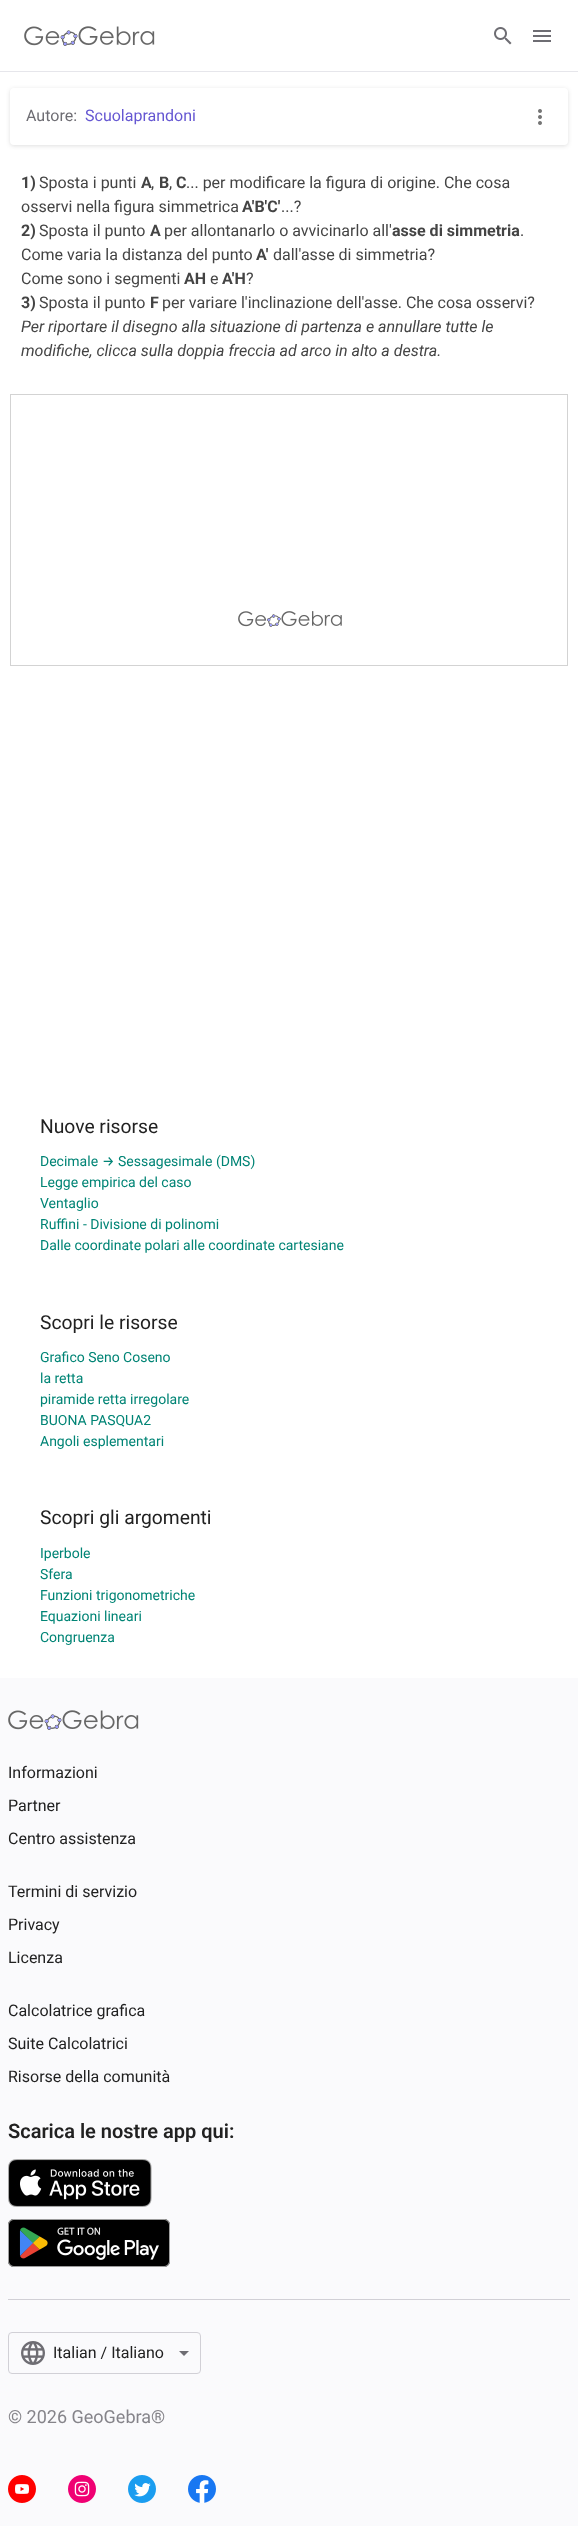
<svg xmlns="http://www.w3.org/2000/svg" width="578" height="2526">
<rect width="100%" height="100%" fill="#fff"/>
<rect y="71" width="578" height="1" fill="#e6e6eb"/>
<image x="24" y="26" width="131" height="20" href="media/1.png"/>
<image x="494" y="27" width="18" height="18" href="media/2.png"/>
<image x="533" y="30" width="18" height="12" href="media/3.png"/>
<rect x="10" y="89" width="558" height="57" rx="4" fill="#1c1c1f24" filter="blur(2px)"/>
<rect x="10" y="88" width="558" height="57" rx="4" fill="#fff"/>
<text x="26" y="121" style="font-family:Roboto;font-size:16px;fill:#6e6d73">Autore:</text>
<text x="85" y="121" style="font-family:Roboto;font-size:16px;fill:#6557d2">Scuolaprandoni</text>
<image x="538" y="109" width="4" height="16" href="media/4.png"/>
<text x="21" y="188" style="font-family:Roboto;font-size:16px;font-weight:bold;fill:#444">1)</text>
<text x="39" y="188" style="font-family:Roboto;font-size:16px;fill:#444">Sposta i punti</text>
<text x="141" y="188" style="font-family:Roboto;font-size:16px;font-weight:bold;fill:#444">A</text>
<text x="151" y="188" style="font-family:Roboto;font-size:16px;fill:#444">,</text>
<text x="159" y="188" style="font-family:Roboto;font-size:16px;font-weight:bold;fill:#444">B</text>
<text x="169" y="188" style="font-family:Roboto;font-size:16px;fill:#444">,</text>
<text x="176" y="188" style="font-family:Roboto;font-size:16px;font-weight:bold;fill:#444">C</text>
<text x="186" y="188" style="font-family:Roboto;font-size:16px;fill:#444">... per modificare la figura di origine. Che cosa</text>
<text x="21" y="212" style="font-family:Roboto;font-size:16px;fill:#444">osservi nella figura simmetrica</text>
<text x="242" y="212" style="font-family:Roboto;font-size:16px;font-weight:bold;fill:#444">A'B'C'</text>
<text x="281" y="212" style="font-family:Roboto;font-size:16px;fill:#444">...?</text>
<text x="21" y="236" style="font-family:Roboto;font-size:16px;font-weight:bold;fill:#444">2)</text>
<text x="39" y="236" style="font-family:Roboto;font-size:16px;fill:#444">Sposta il punto</text>
<text x="150" y="236" style="font-family:Roboto;font-size:16px;font-weight:bold;fill:#444">A</text>
<text x="164" y="236" style="font-family:Roboto;font-size:16px;fill:#444">per allontanarlo o avvicinarlo all'</text>
<text x="392" y="236" style="font-family:Roboto;font-size:16px;font-weight:bold;fill:#444">asse di simmetria</text>
<text x="520" y="236" style="font-family:Roboto;font-size:16px;fill:#444">.</text>
<text x="21" y="260" style="font-family:Roboto;font-size:16px;fill:#444">Come varia la distanza del punto</text>
<text x="256" y="260" style="font-family:Roboto;font-size:16px;font-weight:bold;fill:#444">A'</text>
<text x="273" y="260" style="font-family:Roboto;font-size:16px;fill:#444">dall'asse di simmetria?</text>
<text x="21" y="284" style="font-family:Roboto;font-size:16px;fill:#444">Come sono i segmenti</text>
<text x="184" y="284" style="font-family:Roboto;font-size:16px;font-weight:bold;fill:#444">AH</text>
<text x="210" y="284" style="font-family:Roboto;font-size:16px;fill:#444">e</text>
<text x="222" y="284" style="font-family:Roboto;font-size:16px;font-weight:bold;fill:#444">A'H</text>
<text x="246" y="284" style="font-family:Roboto;font-size:16px;fill:#444">?</text>
<text x="21" y="308" style="font-family:Roboto;font-size:16px;font-weight:bold;fill:#444">3)</text>
<text x="39" y="308" style="font-family:Roboto;font-size:16px;fill:#444">Sposta il punto</text>
<text x="150" y="308" style="font-family:Roboto;font-size:16px;font-weight:bold;fill:#444">F</text>
<text x="162" y="308" style="font-family:Roboto;font-size:16px;fill:#444">per variare l'inclinazione dell'asse. Che cosa osservi?</text>
<text x="21" y="332" style="font-family:Roboto;font-size:16px;font-style:italic;fill:#444">Per riportare il disegno alla situazione di partenza e annullare tutte le</text>
<text x="21" y="356" style="font-family:Roboto;font-size:16px;font-style:italic;fill:#444">modifiche, clicca sulla doppia freccia ad arco in alto a destra.</text>
<image x="238" y="611" width="104" height="16" href="media/5.png"/>
<rect x="10.5" y="394.5" width="557" height="271" fill="none" stroke="#d3d3d3"/>
<text x="40" y="1133" style="font-family:Roboto;font-size:19.25px;fill:#212121">Nuove risorse</text>
<text x="40" y="1166" style="font-family:Roboto;font-size:14px;fill:#008475">Decimale</text>
<text x="102" y="1166" style="font-family:Fira Sans;font-size:14px;fill:#008475">→</text>
<text x="118" y="1166" style="font-family:Roboto;font-size:14px;fill:#008475">Sessagesimale (DMS)</text>
<text x="40" y="1187" style="font-family:Roboto;font-size:14px;fill:#008475">Legge empirica del caso</text>
<text x="40" y="1208" style="font-family:Roboto;font-size:14px;fill:#008475">Ventaglio</text>
<text x="40" y="1229" style="font-family:Roboto;font-size:14px;fill:#008475">Ruffini - Divisione di polinomi</text>
<text x="40" y="1250" style="font-family:Roboto;font-size:14px;fill:#008475">Dalle coordinate polari alle coordinate cartesiane</text>
<text x="40" y="1329" style="font-family:Roboto;font-size:19.25px;fill:#212121">Scopri le risorse</text>
<text x="40" y="1362" style="font-family:Roboto;font-size:14px;fill:#008475">Grafico Seno Coseno</text>
<text x="40" y="1383" style="font-family:Roboto;font-size:14px;fill:#008475">la retta</text>
<text x="40" y="1404" style="font-family:Roboto;font-size:14px;fill:#008475">piramide retta irregolare</text>
<text x="40" y="1425" style="font-family:Roboto;font-size:14px;fill:#008475">BUONA PASQUA2</text>
<text x="40" y="1446" style="font-family:Roboto;font-size:14px;fill:#008475">Angoli esplementari</text>
<text x="40" y="1524" style="font-family:Roboto;font-size:19.25px;fill:#212121">Scopri gli argomenti</text>
<text x="40" y="1558" style="font-family:Roboto;font-size:14px;fill:#008475">Iperbole</text>
<text x="40" y="1579" style="font-family:Roboto;font-size:14px;fill:#008475">Sfera</text>
<text x="40" y="1600" style="font-family:Roboto;font-size:14px;fill:#008475">Funzioni trigonometriche</text>
<text x="40" y="1621" style="font-family:Roboto;font-size:14px;fill:#008475">Equazioni lineari</text>
<text x="40" y="1642" style="font-family:Roboto;font-size:14px;fill:#008475">Congruenza</text>
<rect y="1678" width="578" height="848" fill="#fafafc"/>
<image x="8" y="1710" width="131" height="20" href="media/6.png"/>
<text x="8" y="1778" style="font-family:Roboto;font-size:16px;fill:#212121">Informazioni</text>
<text x="8" y="1811" style="font-family:Roboto;font-size:16px;fill:#212121">Partner</text>
<text x="8" y="1844" style="font-family:Roboto;font-size:16px;fill:#212121">Centro assistenza</text>
<text x="8" y="1897" style="font-family:Roboto;font-size:16px;fill:#212121">Termini di servizio</text>
<text x="8" y="1930" style="font-family:Roboto;font-size:16px;fill:#212121">Privacy</text>
<text x="8" y="1963" style="font-family:Roboto;font-size:16px;fill:#212121">Licenza</text>
<text x="8" y="2016" style="font-family:Roboto;font-size:16px;fill:#212121">Calcolatrice grafica</text>
<text x="8" y="2049" style="font-family:Roboto;font-size:16px;fill:#212121">Suite Calcolatrici</text>
<text x="8" y="2082" style="font-family:Roboto;font-size:16px;fill:#212121">Risorse della comunità</text>
<text x="8" y="2138" style="font-family:Roboto;font-size:20px;font-weight:600;fill:#212121">Scarica le nostre app qui:</text>
<image x="8" y="2159" width="144" height="48" href="media/7.png"/>
<image x="8" y="2219" width="162" height="48" href="media/8.png"/>
<rect x="8" y="2299" width="562" height="1" fill="#d1d0d6"/>
<rect x="8.5" y="2332.5" width="192" height="41" rx="3.5" fill="none" stroke="#d1d0d6"/>
<image x="21" y="2341" width="24" height="24" href="media/9.png"/>
<text x="53" y="2358" style="font-family:Roboto;font-size:16px;fill:#212121">Italian / Italiano</text>
<path d="M179 2351l5 5l5-5z" fill="#6e6d73"/>
<text x="8" y="2423" style="font-family:Roboto;font-size:18px;fill:#85848a">© 2026 GeoGebra®</text>
<image x="8" y="2475" width="28" height="28" href="media/10.png"/>
<image x="68" y="2475" width="28" height="28" href="media/11.png"/>
<image x="128" y="2475" width="28" height="28" href="media/12.png"/>
<image x="188" y="2475" width="28" height="28" href="media/13.png"/>
</svg>
